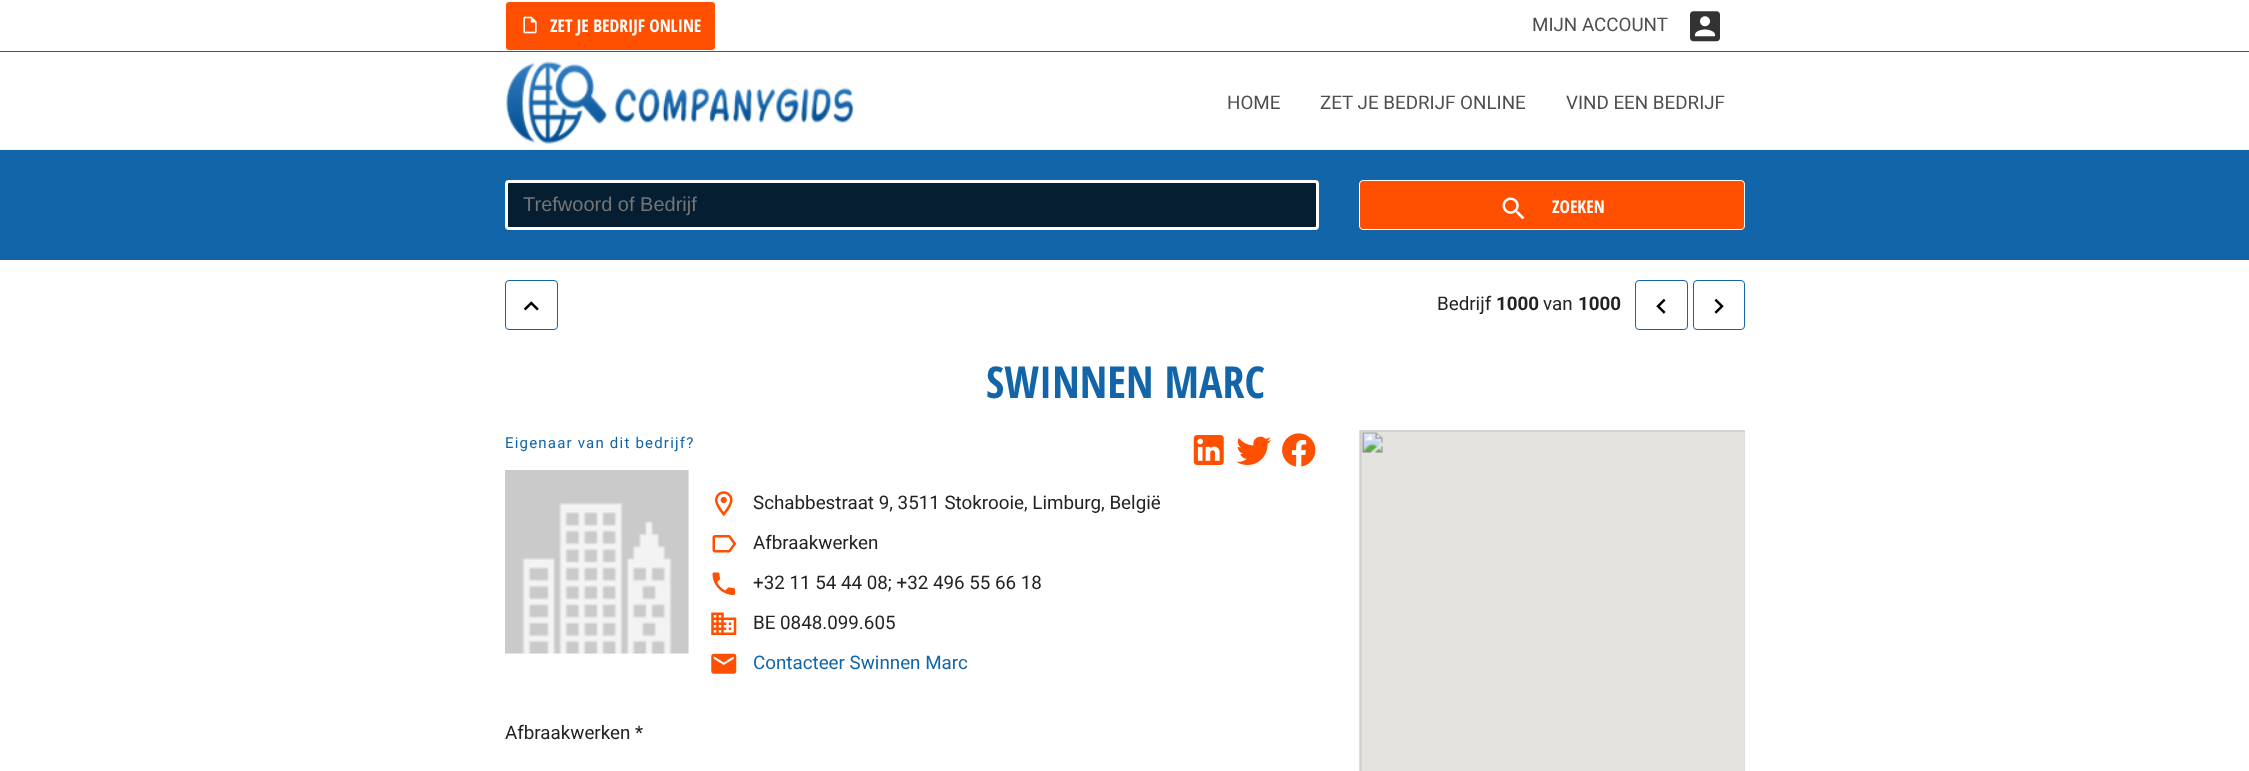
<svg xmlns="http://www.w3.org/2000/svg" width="2249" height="771">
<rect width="100%" height="100%" fill="#fff"/>
<rect y="149" width="2249" height="1" fill="#f3f3f3"/>
<rect y="51" width="2249" height="1" fill="#1265a8"/>
<rect x="505.5" y="1.5" width="210" height="49" rx="3.5" fill="#ff4f00" stroke="#fff"/>
<image x="523" y="16" width="14" height="18" href="media/1.png"/>
<text x="550" y="32" style="font-family:Open Sans Condensed;font-size:17.5px;font-weight:bold;fill:#fff">ZET JE BEDRIJF ONLINE</text>
<text x="1532" y="31" style="font-family:Roboto;font-size:18.8px;fill:#4e4e4e">MIJN ACCOUNT</text>
<image x="1690" y="11" width="30" height="31" href="media/2.png"/>
<image x="506" y="61" width="348" height="83" href="media/3.png"/>
<text x="1227" y="109" style="font-family:Roboto;font-size:18.8px;fill:#4e4e4e">HOME</text>
<text x="1320" y="109" style="font-family:Roboto;font-size:18.8px;fill:#4e4e4e">ZET JE BEDRIJF ONLINE</text>
<text x="1566" y="109" style="font-family:Roboto;font-size:18.8px;fill:#4e4e4e">VIND EEN BEDRIJF</text>
<rect y="150" width="2249" height="110" fill="#1265a8"/>
<rect x="506.5" y="181.5" width="811" height="47" rx="2.5" fill="#051e32" stroke="#fff" stroke-width="3"/>
<text x="523" y="211" style="font-family:Liberation Sans;font-size:20px;fill:#757575">Trefwoord of Bedrijf</text>
<rect x="1359.5" y="180.5" width="385" height="49" rx="3.5" fill="#ff4f00" stroke="#fff"/>
<image x="1502" y="197" width="23" height="23" href="media/4.png"/>
<text x="1552" y="213" style="font-family:Open Sans Condensed;font-size:17.5px;font-weight:bold;fill:#fff">ZOEKEN</text>
<rect x="505.5" y="280.5" width="52" height="49" rx="3.5" fill="none" stroke="#1265a8"/>
<image x="523" y="301" width="16" height="10" href="media/5.png"/>
<text x="1437" y="310" style="font-family:Roboto;font-size:18.8px;fill:#222">Bedrijf</text>
<text x="1496" y="310" style="font-family:Roboto;font-size:18.8px;font-weight:bold;fill:#222">1000</text>
<text x="1543" y="310" style="font-family:Roboto;font-size:18.8px;fill:#222">van</text>
<text x="1578" y="310" style="font-family:Roboto;font-size:18.8px;font-weight:bold;fill:#222">1000</text>
<rect x="1635.5" y="280.5" width="52" height="49" rx="3.5" fill="none" stroke="#1265a8"/>
<image x="1656" y="298" width="10" height="16" href="media/6.png"/>
<rect x="1693.5" y="280.5" width="51" height="49" rx="3.5" fill="none" stroke="#1265a8"/>
<image x="1714" y="298" width="10" height="16" href="media/7.png"/>
<text x="986" y="398" style="font-family:Open Sans Condensed;font-size:44px;font-weight:bold;fill:#1265a8">SWINNEN MARC</text>
<text x="505" y="448" style="font-family:Roboto;font-size:15px;letter-spacing:1.2px;fill:#1265a8">Eigenaar van dit bedrijf?</text>
<image x="1193" y="435" width="31" height="30" href="media/8.png"/>
<image x="1236" y="436" width="35" height="29" href="media/9.png"/>
<image x="1282" y="433" width="34" height="34" href="media/10.png"/>
<image x="505" y="470" width="184" height="184" href="media/11.png"/>
<image x="715" y="491" width="18" height="26" href="media/12.png"/>
<text x="753" y="509" style="font-family:Roboto;font-size:18.8px;fill:#222">Schabbestraat 9, 3511 Stokrooie, Limburg, België</text>
<image x="712" y="535" width="25" height="18" href="media/13.png"/>
<text x="753" y="549" style="font-family:Roboto;font-size:18.8px;fill:#222">Afbraakwerken</text>
<image x="712" y="572" width="23" height="23" href="media/14.png"/>
<text x="753" y="589" style="font-family:Roboto;font-size:18.8px;fill:#222">+32 11 54 44 08; +32 496 55 66 18</text>
<image x="711" y="612" width="26" height="23" href="media/15.png"/>
<text x="753" y="629" style="font-family:Roboto;font-size:18.8px;fill:#222">BE 0848.099.605</text>
<image x="711" y="653" width="26" height="21" href="media/16.png"/>
<text x="753" y="669" style="font-family:Roboto;font-size:18.8px;fill:#1265a8">Contacteer Swinnen Marc</text>
<text x="505" y="739" style="font-family:Roboto;font-size:18.8px;fill:#222">Afbraakwerken *</text>
<image x="1359" y="430" width="386" height="341" href="media/17.png"/>
</svg>
